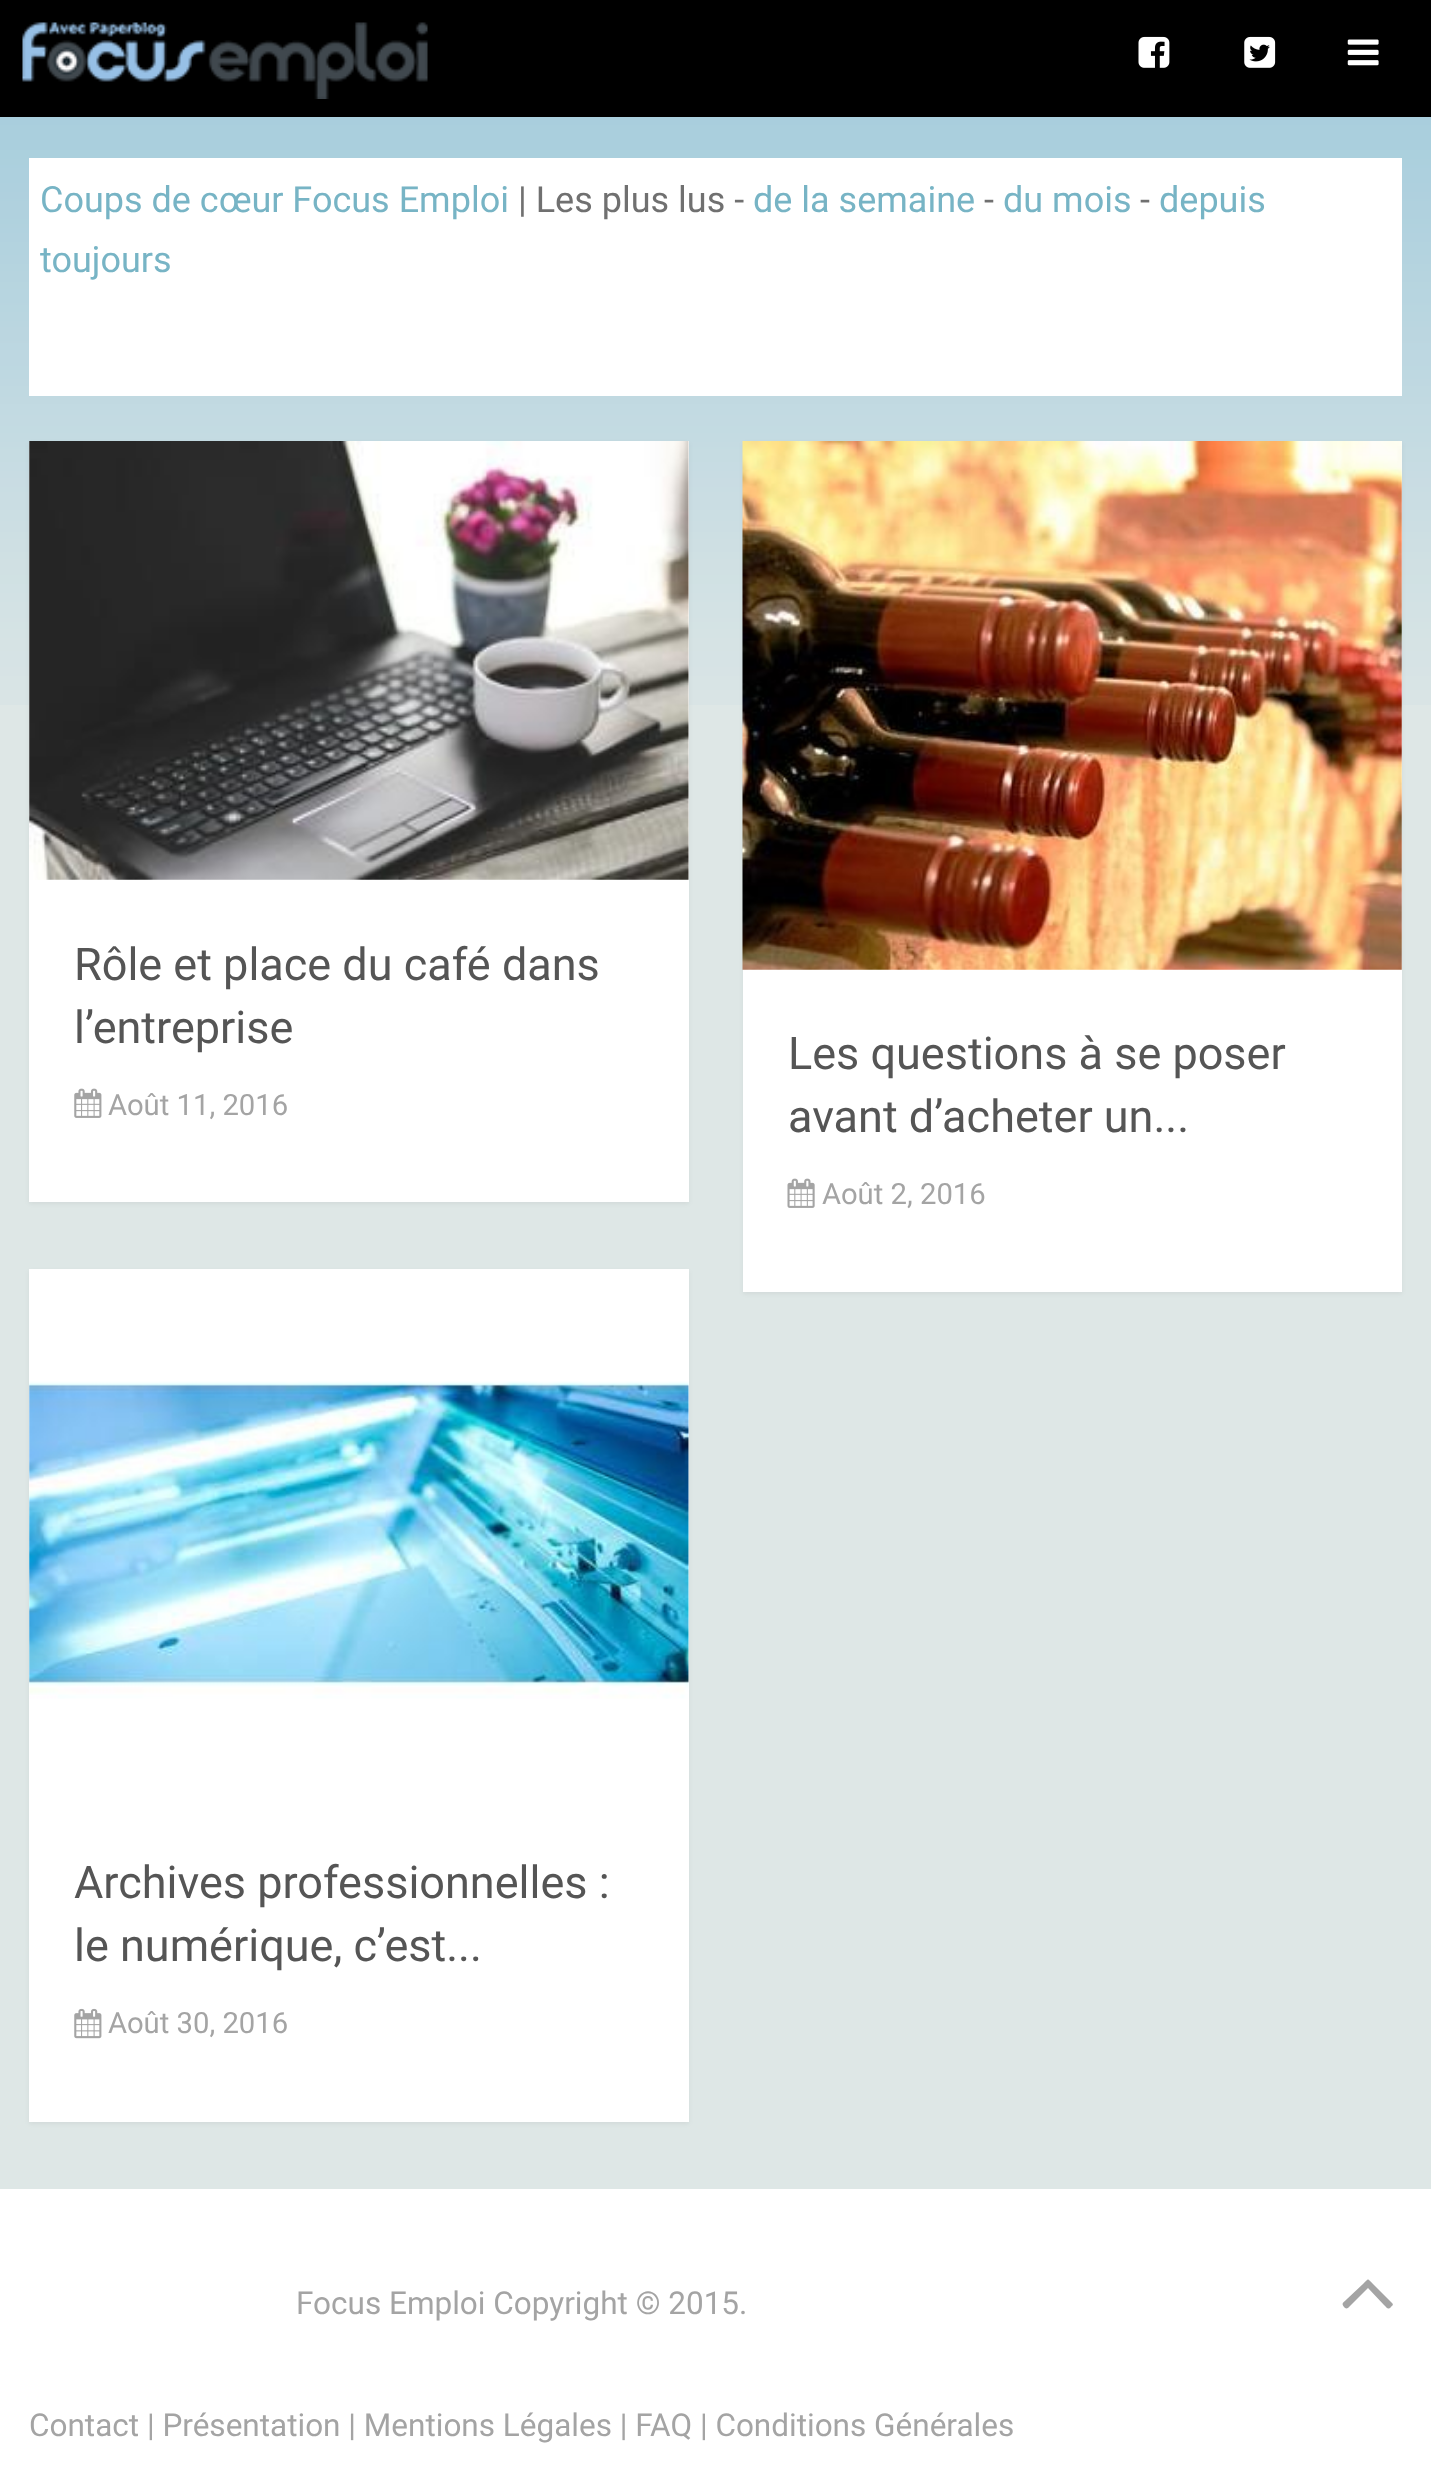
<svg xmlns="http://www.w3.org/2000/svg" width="1431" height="2481">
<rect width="100%" height="100%" fill="#dee7e6"/>
<image x="0" y="117" width="1431" height="588" href="media/1.png"/>
<rect width="1431" height="117" fill="#000"/>
<image x="22" y="22" width="406" height="77" href="media/2.png"/>
<image x="1138" y="36" width="32" height="32" href="media/3.png"/>
<image x="1244" y="36" width="32" height="32" href="media/4.png"/>
<image x="1347" y="39" width="32" height="27" href="media/5.png"/>
<rect x="29" y="158" width="1373" height="238" fill="#fff"/>
<text x="40" y="212" style="font-family:Roboto;font-size:36px;fill:#77b4c5">Coups de cœur Focus Emploi</text>
<text x="518" y="212" style="font-family:Roboto;font-size:36px;fill:#707070">| Les plus lus -</text>
<text x="753" y="212" style="font-family:Roboto;font-size:36px;fill:#77b4c5">de la semaine</text>
<text x="984" y="212" style="font-family:Roboto;font-size:36px;fill:#707070">-</text>
<text x="1003" y="212" style="font-family:Roboto;font-size:36px;fill:#77b4c5">du mois</text>
<text x="1140" y="212" style="font-family:Roboto;font-size:36px;fill:#707070">-</text>
<text x="1159" y="212" style="font-family:Roboto;font-size:36px;fill:#77b4c5">depuis</text>
<text x="40" y="272" style="font-family:Roboto;font-size:36px;fill:#77b4c5">toujours</text>
<rect x="29" y="443" width="660" height="761" fill="#0000000d" filter="blur(2px)"/>
<rect x="29" y="441" width="660" height="761" fill="#fff"/>
<image x="29" y="441" width="660" height="439" href="media/6.png"/>
<text x="74" y="980" style="font-family:Roboto;font-size:45px;fill:#555">Rôle et place du café dans</text>
<text x="74" y="1043" style="font-family:Roboto;font-size:45px;fill:#555">l’entreprise</text>
<image x="74" y="1088" width="28" height="30" href="media/7.png"/>
<text x="108" y="1115" style="font-family:Roboto;font-size:29.25px;fill:#a4a4a4">Août 11, 2016</text>
<rect x="743" y="443" width="659" height="851" fill="#0000000d" filter="blur(2px)"/>
<rect x="743" y="441" width="659" height="851" fill="#fff"/>
<image x="742" y="441" width="660" height="529" href="media/8.png"/>
<text x="788" y="1069" style="font-family:Roboto;font-size:45px;fill:#555">Les questions à se poser</text>
<text x="788" y="1132" style="font-family:Roboto;font-size:45px;fill:#555">avant d’acheter un...</text>
<image x="787" y="1178" width="28" height="30" href="media/9.png"/>
<text x="822" y="1204" style="font-family:Roboto;font-size:29.25px;fill:#a4a4a4">Août 2, 2016</text>
<rect x="29" y="1271" width="660" height="853" fill="#0000000d" filter="blur(2px)"/>
<rect x="29" y="1269" width="660" height="853" fill="#fff"/>
<image x="29" y="1381" width="660" height="318" href="media/10.png"/>
<text x="74" y="1898" style="font-family:Roboto;font-size:45px;fill:#555">Archives professionnelles :</text>
<text x="74" y="1961" style="font-family:Roboto;font-size:45px;fill:#555">le numérique, c’est...</text>
<image x="74" y="2008" width="28" height="31" href="media/11.png"/>
<text x="108" y="2033" style="font-family:Roboto;font-size:29.25px;fill:#a4a4a4">Août 30, 2016</text>
<rect y="2189" width="1431" height="292" fill="#fff"/>
<text x="296" y="2314" style="font-family:Roboto;font-size:31.5px;fill:#a4a4a4">Focus Emploi Copyright © 2015.</text>
<text x="29" y="2436" style="font-family:Roboto;font-size:31.5px;fill:#a4a4a4">Contact | Présentation | Mentions Légales | FAQ | Conditions Générales</text>
<path d="M1392 2303c2 2 0 3-1 4c-3 3-4 1-7-2l-16-17l-20 20c-2 1-3 0-4-1c-3-4-1-4 3-8l16-15c6-6 4-6 10 0z" fill="#a4a4a4"/>
</svg>
